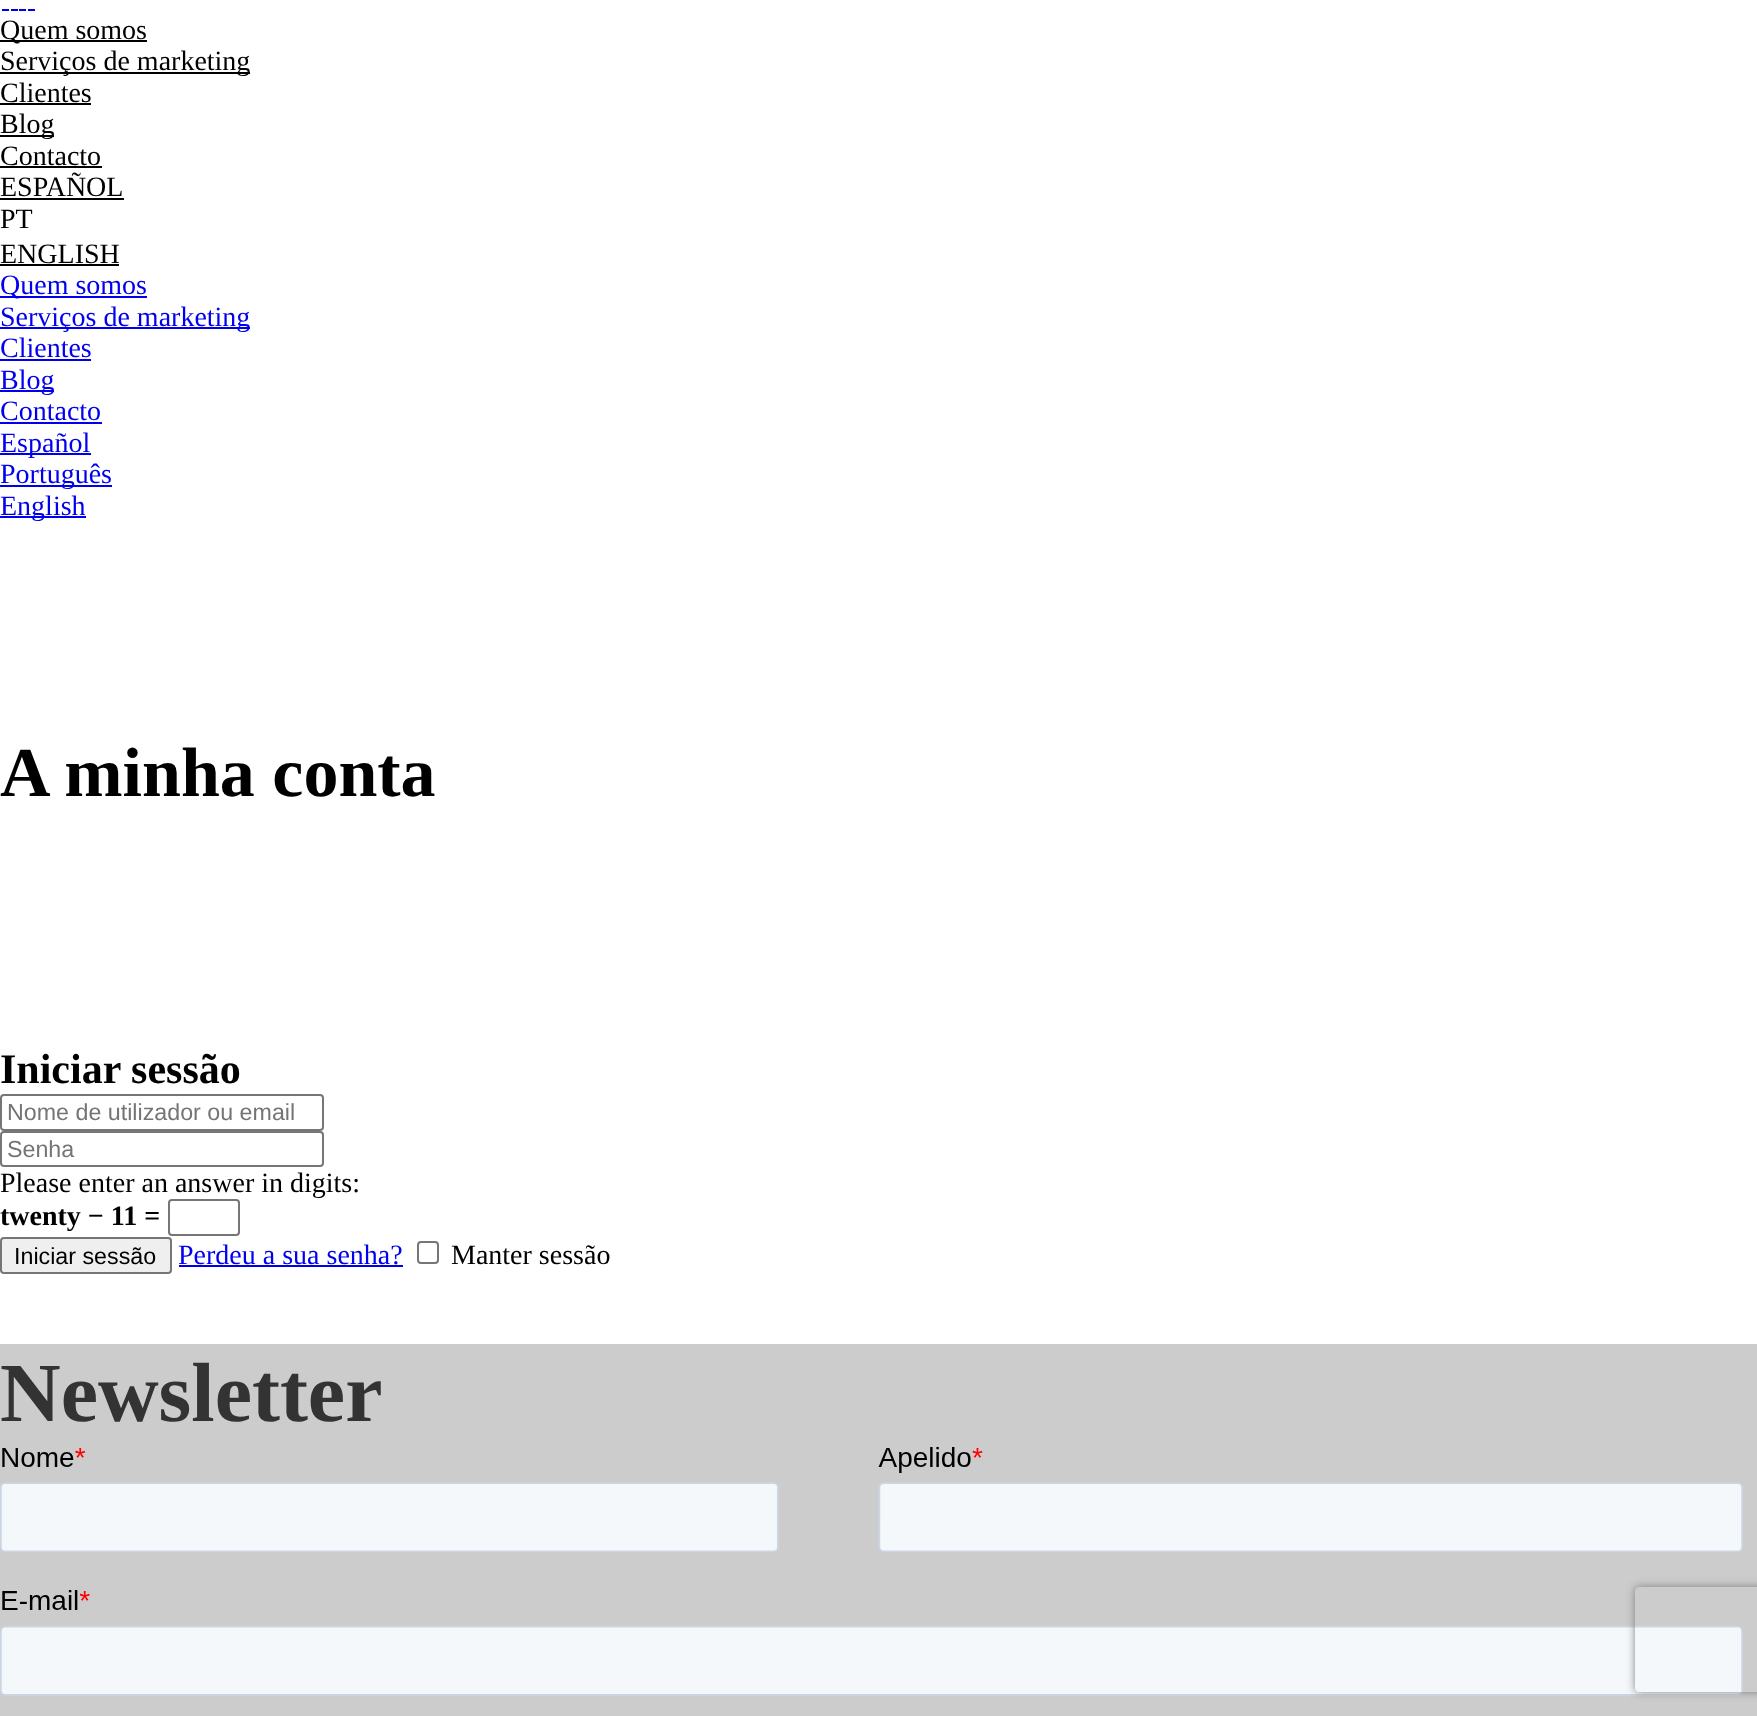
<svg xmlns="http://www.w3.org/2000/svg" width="1757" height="1716">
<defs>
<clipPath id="clip1"><path d="M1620 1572h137v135h-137zm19 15h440c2 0 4 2 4 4v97c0 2-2 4-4 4h-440c-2 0-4-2-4-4v-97c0-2 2-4 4-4z" clip-rule="evenodd"/></clipPath>
</defs>
<rect width="100%" height="100%" fill="#fff"/>
<rect x="2" y="9" width="7" height="2" fill="#00e"/>
<rect x="11" y="9" width="7" height="2" fill="#00e"/>
<rect x="19" y="9" width="7" height="2" fill="#00e"/>
<rect x="28" y="9" width="7" height="2" fill="#00e"/>
<rect y="40" width="147" height="2" fill="#000"/>
<text x="0" y="39" style="font-family:Liberation Serif;font-size:28px;fill:#000">Quem somos</text>
<rect y="72" width="250" height="2" fill="#000"/>
<text x="0" y="70" style="font-family:Liberation Serif;font-size:28px;fill:#000">Serviços de marketing</text>
<text x="0" y="102" style="font-family:Liberation Serif;font-size:28px;fill:#000">Clientes</text>
<rect y="103" width="91" height="2" fill="#000"/>
<rect y="135" width="54" height="2" fill="#000"/>
<text x="0" y="133" style="font-family:Liberation Serif;font-size:28px;fill:#000">Blog</text>
<text x="0" y="165" style="font-family:Liberation Serif;font-size:28px;fill:#000">Contacto</text>
<rect y="166" width="102" height="2" fill="#000"/>
<text x="0" y="196" style="font-family:Liberation Serif;font-size:28px;fill:#000">ESPAÑOL</text>
<rect y="198" width="124" height="2" fill="#000"/>
<text x="0" y="228" style="font-family:Liberation Serif;font-size:28px;fill:#000">PT</text>
<text x="0" y="263" style="font-family:Liberation Serif;font-size:28px;fill:#000">ENGLISH</text>
<rect y="264" width="119" height="2" fill="#000"/>
<rect y="296" width="147" height="2" fill="#00e"/>
<text x="0" y="294" style="font-family:Liberation Serif;font-size:28px;fill:#00e">Quem somos</text>
<rect y="327" width="250" height="2" fill="#00e"/>
<text x="0" y="326" style="font-family:Liberation Serif;font-size:28px;fill:#00e">Serviços de marketing</text>
<text x="0" y="357" style="font-family:Liberation Serif;font-size:28px;fill:#00e">Clientes</text>
<rect y="359" width="91" height="2" fill="#00e"/>
<rect y="390" width="54" height="2" fill="#00e"/>
<text x="0" y="389" style="font-family:Liberation Serif;font-size:28px;fill:#00e">Blog</text>
<text x="0" y="420" style="font-family:Liberation Serif;font-size:28px;fill:#00e">Contacto</text>
<rect y="422" width="102" height="2" fill="#00e"/>
<rect y="453" width="91" height="2" fill="#00e"/>
<text x="0" y="452" style="font-family:Liberation Serif;font-size:28px;fill:#00e">Español</text>
<rect y="485" width="112" height="2" fill="#00e"/>
<text x="0" y="483" style="font-family:Liberation Serif;font-size:28px;fill:#00e">Português</text>
<rect y="516" width="86" height="2" fill="#00e"/>
<text x="0" y="515" style="font-family:Liberation Serif;font-size:28px;fill:#00e">English</text>
<text x="0" y="796" style="font-family:Liberation Serif;font-size:70px;font-weight:bold;fill:#000">A minha conta</text>
<text x="0" y="1083" style="font-family:Liberation Serif;font-size:42px;font-weight:bold;fill:#000">Iniciar sessão</text>
<rect x="1" y="1095" width="322" height="35" rx="3" fill="none" stroke="#767676" stroke-width="2"/>
<text x="7" y="1120" style="font-family:Liberation Sans;font-size:23.25px;fill:#757575">Nome de utilizador ou email</text>
<rect x="1" y="1132" width="322" height="34" rx="3" fill="none" stroke="#767676" stroke-width="2"/>
<text x="7" y="1157" style="font-family:Liberation Sans;font-size:23.25px;fill:#757575">Senha</text>
<text x="0" y="1192" style="font-family:Liberation Serif;font-size:28px;fill:#000">Please enter an answer in digits:</text>
<text x="0" y="1225" style="font-family:Liberation Serif;font-size:28px;font-weight:bold;fill:#000">twenty − 11 =</text>
<rect x="169" y="1200" width="70" height="35" rx="3" fill="none" stroke="#767676" stroke-width="2"/>
<rect x="1" y="1238" width="170" height="35" rx="3" fill="#efefef" stroke="#767676" stroke-width="2"/>
<text x="14" y="1264" style="font-family:Liberation Sans;font-size:23.25px;fill:#000">Iniciar sessão</text>
<text x="178" y="1264" style="font-family:Liberation Serif;font-size:28px;fill:#00e">Perdeu a sua senha?</text>
<rect x="179" y="1265" width="224" height="2" fill="#00e"/>
<rect x="418" y="1242" width="20" height="21" rx="3" fill="none" stroke="#767676" stroke-width="2"/>
<text x="451" y="1264" style="font-family:Liberation Serif;font-size:28px;fill:#000">Manter sessão</text>
<rect y="1344" width="1757" height="372" fill="#ccc"/>
<text x="0" y="1421" style="font-family:Liberation Serif;font-size:84px;font-weight:bold;fill:#333">Newsletter</text>
<image x="0" y="1447" width="1743" height="249" href="media/1.png"/>
<g clip-path="url(#clip1)">
<rect x="1635" y="1587" width="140" height="105" rx="4" fill="#808080" filter="blur(4.5px)"/>
</g>
</svg>
